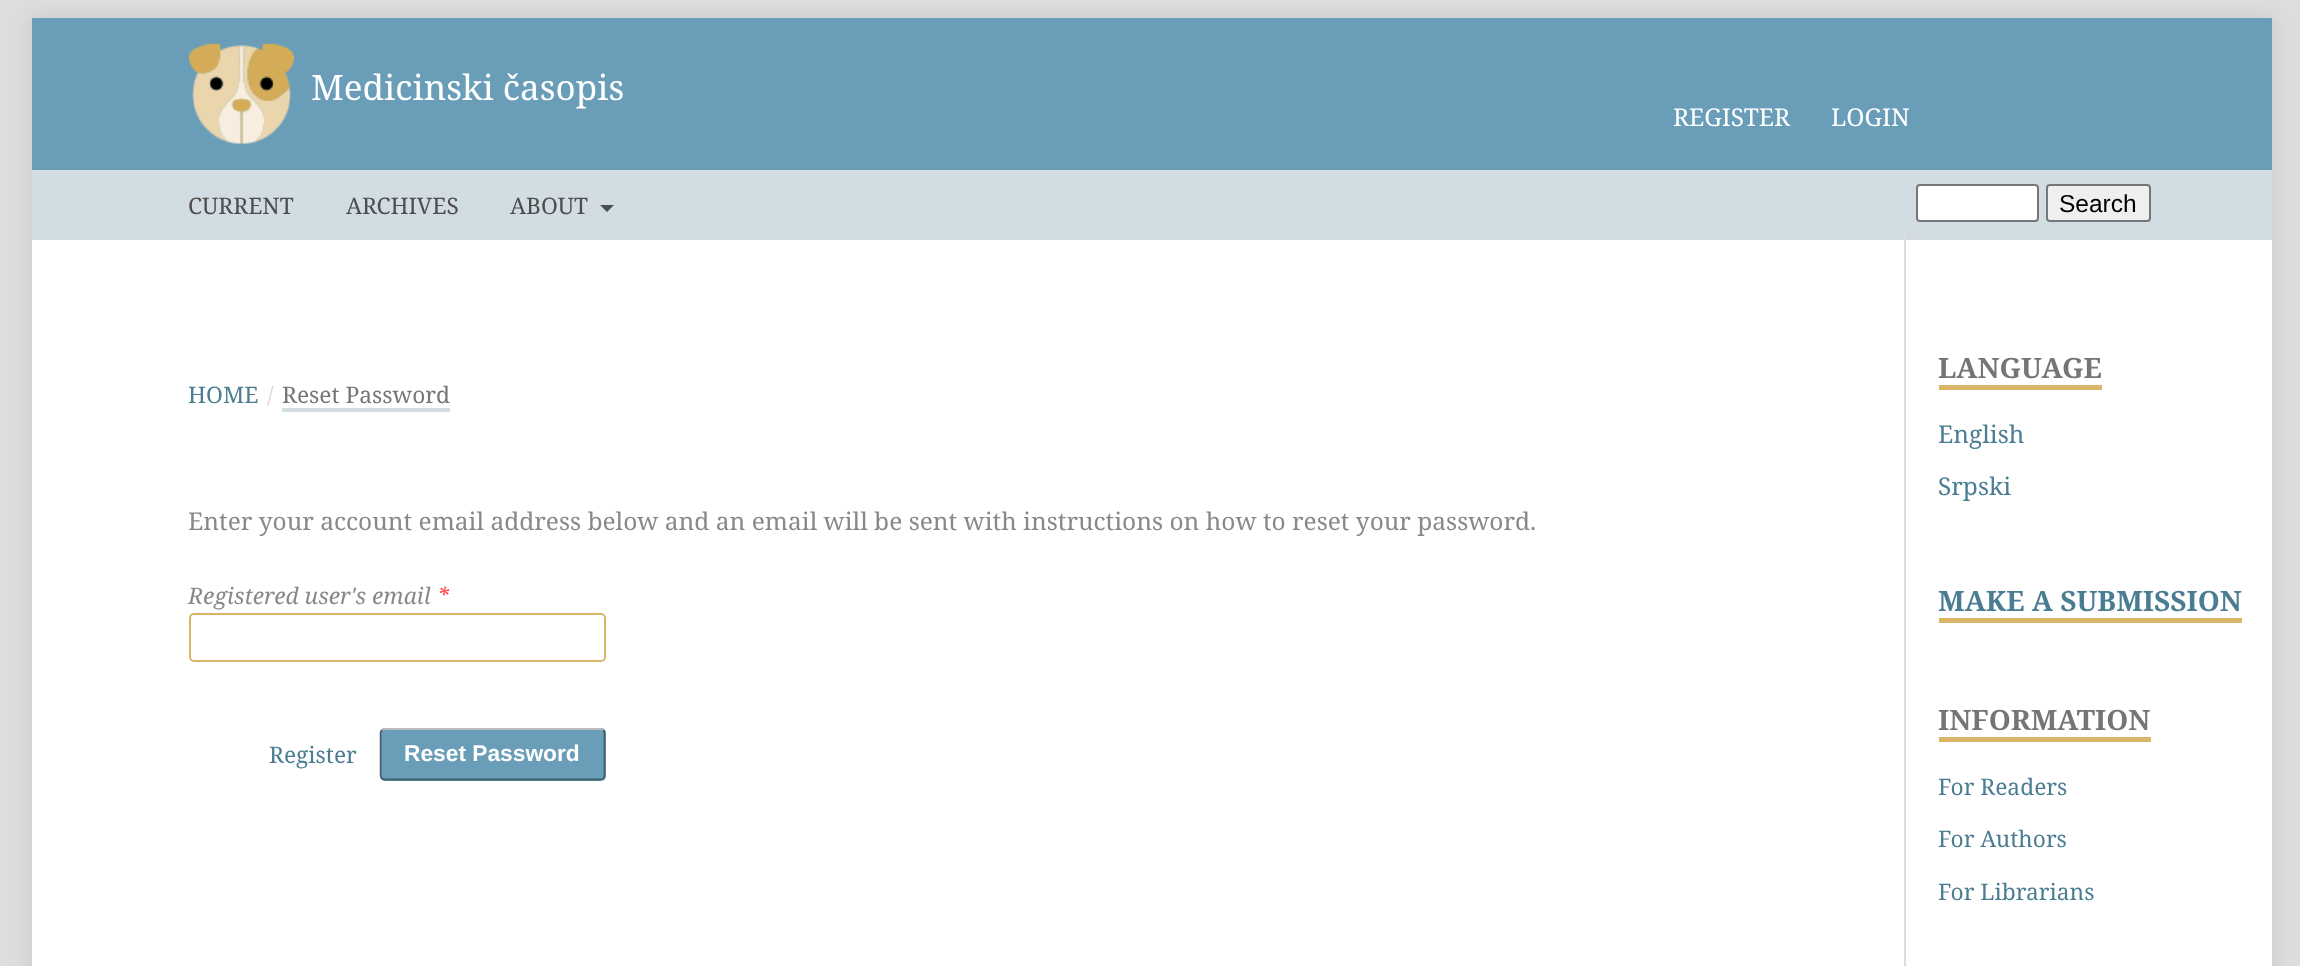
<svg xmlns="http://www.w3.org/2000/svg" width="2300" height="966">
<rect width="100%" height="100%" fill="#ddd"/>
<rect x="32" y="18" width="2240" height="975" fill="#0000001a" filter="blur(9px)"/>
<rect x="32" y="240" width="2240" height="726" fill="#fff"/>
<rect x="32" y="18" width="2240" height="152" fill="#6a9eb8"/>
<image x="189" y="43" width="105" height="101" href="media/1.png"/>
<text x="311" y="100" style="font-family:Noto Serif;font-size:35px;fill:#fff">Medicinski časopis</text>
<text x="1673" y="126" style="font-family:Noto Serif;font-size:24.5px;fill:#fff">REGISTER</text>
<text x="1831" y="126" style="font-family:Noto Serif;font-size:24.5px;fill:#fff">LOGIN</text>
<rect x="32" y="170" width="2240" height="70" fill="#d1dde2"/>
<text x="188" y="214" style="font-family:Noto Serif;font-size:22.75px;fill:#4d4d4d">CURRENT</text>
<text x="346" y="214" style="font-family:Noto Serif;font-size:22.75px;fill:#4d4d4d">ARCHIVES</text>
<text x="510" y="214" style="font-family:Noto Serif;font-size:22.75px;fill:#4d4d4d">ABOUT</text>
<path d="M600 205h14l-7 7z" fill="#4d4d4d"/>
<rect x="1917" y="185" width="121" height="36" rx="3" fill="#fff" stroke="#767676" stroke-width="2"/>
<rect x="2047" y="185" width="103" height="36" rx="3" fill="#efefef" stroke="#767676" stroke-width="2"/>
<text x="2059" y="212" style="font-family:Liberation Sans;font-size:24.5px;fill:#000">Search</text>
<text x="188" y="403" style="font-family:Noto Serif;font-size:22.75px;fill:#4b7d92">HOME</text>
<text x="267" y="403" style="font-family:Noto Serif;font-size:22.75px;fill:#d6d6d6">/</text>
<rect x="282" y="408" width="168" height="4" fill="#d1dde2"/>
<text x="282" y="403" style="font-family:Noto Serif;font-size:22.75px;fill:#757575">Reset Password</text>
<text x="188" y="530" style="font-family:Noto Serif;font-size:24.5px;fill:#888">Enter your account email address below and an email will be sent with instructions on how to reset your password.</text>
<text x="188" y="604" style="font-family:Noto Serif;font-size:22.75px;font-style:italic;fill:#888">Registered user's email</text>
<text x="437" y="604" style="font-family:Noto Serif;font-size:22.75px;font-style:italic;fill:#ff4040">*</text>
<rect x="190" y="614" width="415" height="47" rx="4" fill="none" stroke="#d9b568" stroke-width="2"/>
<text x="269" y="763" style="font-family:Noto Serif;font-size:22.75px;fill:#4b7d92">Register</text>
<rect x="380" y="728" width="226" height="53" rx="5" fill="#6a9eb8"/>
<path d="M382 730l3-1h215.5l3 1" fill="none" stroke="#bbb" stroke-width="1.8"/>
<path d="M603.5 730c.5 1 1 2 1 3v42c0 1.5-.5 2.5-1 3.5c-1 .5-2 1-3.5 1h-215c-1 0-2.5-.5-3-1c-1-1-1.5-2-1.5-3.5v-42c0-1 .5-2 1.5-3" fill="none" stroke="#00000066" stroke-width="1.8"/>
<text x="404" y="761" style="font-family:Liberation Sans;font-size:22.75px;font-weight:bold;fill:#fff">Reset Password</text>
<rect x="1904" y="228" width="2" height="738" fill="#ddd"/>
<rect x="1939" y="385" width="163" height="5" fill="#d9b568"/>
<text x="1938" y="378" style="font-family:Noto Serif;font-size:28px;font-weight:bold;fill:#757575">LANGUAGE</text>
<text x="1938" y="443" style="font-family:Noto Serif;font-size:24.5px;fill:#4b7d92">English</text>
<text x="1938" y="495" style="font-family:Noto Serif;font-size:24.5px;fill:#4b7d92">Srpski</text>
<rect x="1939" y="618" width="303" height="5" fill="#d9b568"/>
<text x="1938" y="611" style="font-family:Noto Serif;font-size:28px;font-weight:bold;fill:#4b7d92">MAKE A SUBMISSION</text>
<rect x="1939" y="737" width="212" height="5" fill="#d9b568"/>
<text x="1938" y="730" style="font-family:Noto Serif;font-size:28px;font-weight:bold;fill:#757575">INFORMATION</text>
<text x="1938" y="795" style="font-family:Noto Serif;font-size:22.75px;fill:#4b7d92">For Readers</text>
<text x="1938" y="847" style="font-family:Noto Serif;font-size:22.75px;fill:#4b7d92">For Authors</text>
<text x="1938" y="900" style="font-family:Noto Serif;font-size:22.75px;fill:#4b7d92">For Librarians</text>
</svg>
